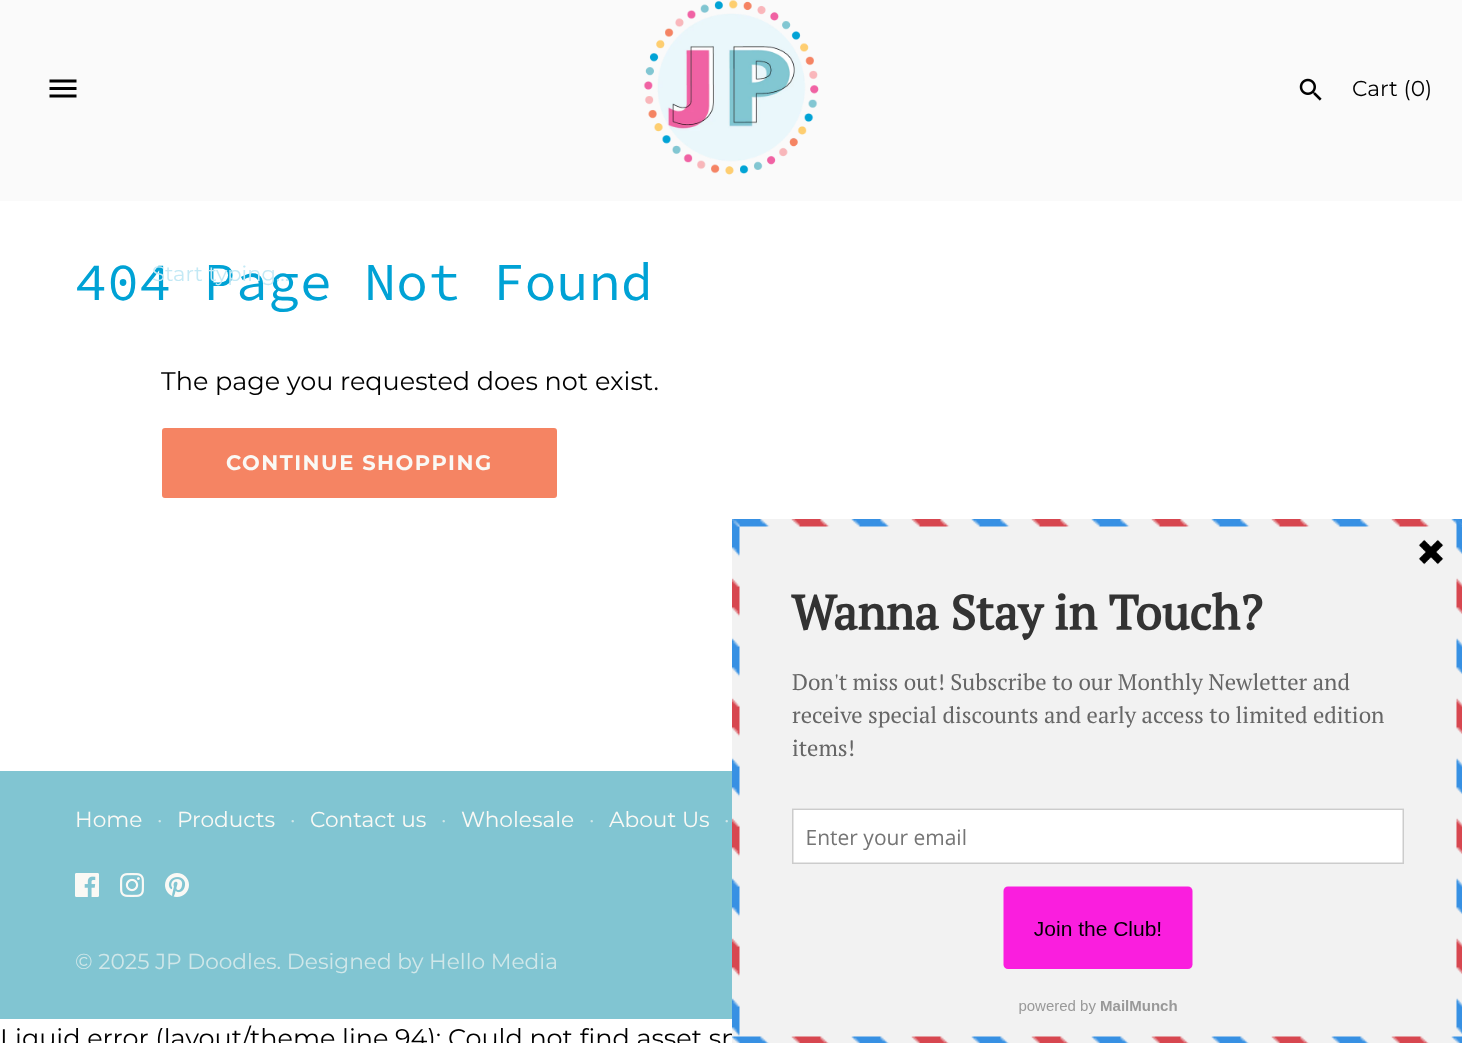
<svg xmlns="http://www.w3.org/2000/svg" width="1462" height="1043">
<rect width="100%" height="100%" fill="#fff"/>
<rect width="1462" height="201" fill="#fafafa"/>
<image x="49" y="79" width="28" height="19" href="media/1.png"/>
<image x="643" y="0" width="176" height="175" href="media/2.png"/>
<image x="1299" y="78" width="23" height="23" href="media/3.png"/>
<text x="1352" y="96" style="font-family:Montserrat;font-size:21.7px;fill:#000">Cart (0)</text>
<text x="75" y="300" style="font-family:Source Code Pro;font-size:53.5px;fill:#00a2d5">404 Page Not Found</text>
<text x="152" y="281" style="font-family:Montserrat;font-size:21px;fill:#c4e9f5">Start typing...</text>
<text x="161" y="390" style="font-family:Montserrat;font-size:25.5px;fill:#000">The page you requested does not exist.</text>
<rect x="163" y="429" width="393" height="68" rx="2" fill="#f58463" stroke="#f58463" stroke-width="2"/>
<text x="226" y="470" style="font-family:Montserrat;font-size:21px;font-weight:bold;letter-spacing:1.5px;fill:#faf9f5">CONTINUE SHOPPING</text>
<rect y="771" width="732" height="248" fill="#81c5d2"/>
<text x="75" y="827" style="font-family:Montserrat;font-size:21.7px;fill:#faf9f5">Home</text>
<text x="157" y="827" style="font-family:Montserrat;font-size:21.7px;fill:#d0e7e9">·</text>
<text x="177" y="827" style="font-family:Montserrat;font-size:21.7px;fill:#faf9f5">Products</text>
<text x="290" y="827" style="font-family:Montserrat;font-size:21.7px;fill:#d0e7e9">·</text>
<text x="310" y="827" style="font-family:Montserrat;font-size:21.7px;fill:#faf9f5">Contact us</text>
<text x="441" y="827" style="font-family:Montserrat;font-size:21.7px;fill:#d0e7e9">·</text>
<text x="461" y="827" style="font-family:Montserrat;font-size:21.7px;fill:#faf9f5">Wholesale</text>
<text x="589" y="827" style="font-family:Montserrat;font-size:21.7px;fill:#d0e7e9">·</text>
<text x="609" y="827" style="font-family:Montserrat;font-size:21.7px;fill:#faf9f5">About Us</text>
<text x="724" y="827" style="font-family:Montserrat;font-size:21.7px;fill:#d0e7e9">·</text>
<image x="75" y="873" width="24" height="24" href="media/4.png"/>
<image x="120" y="873" width="24" height="24" href="media/5.png"/>
<image x="165" y="873" width="24" height="24" href="media/6.png"/>
<text x="75" y="969" style="font-family:Montserrat;font-size:21.7px;fill:#d0e7e9">© 2025 JP Doodles. Designed by Hello Media</text>
<text x="0" y="1047" style="font-family:Montserrat;font-size:25.5px;fill:#000">Liquid error (layout/theme line 94): Could not find asset sn</text>
<image x="732" y="519" width="730" height="524" href="media/7.png"/>
</svg>
